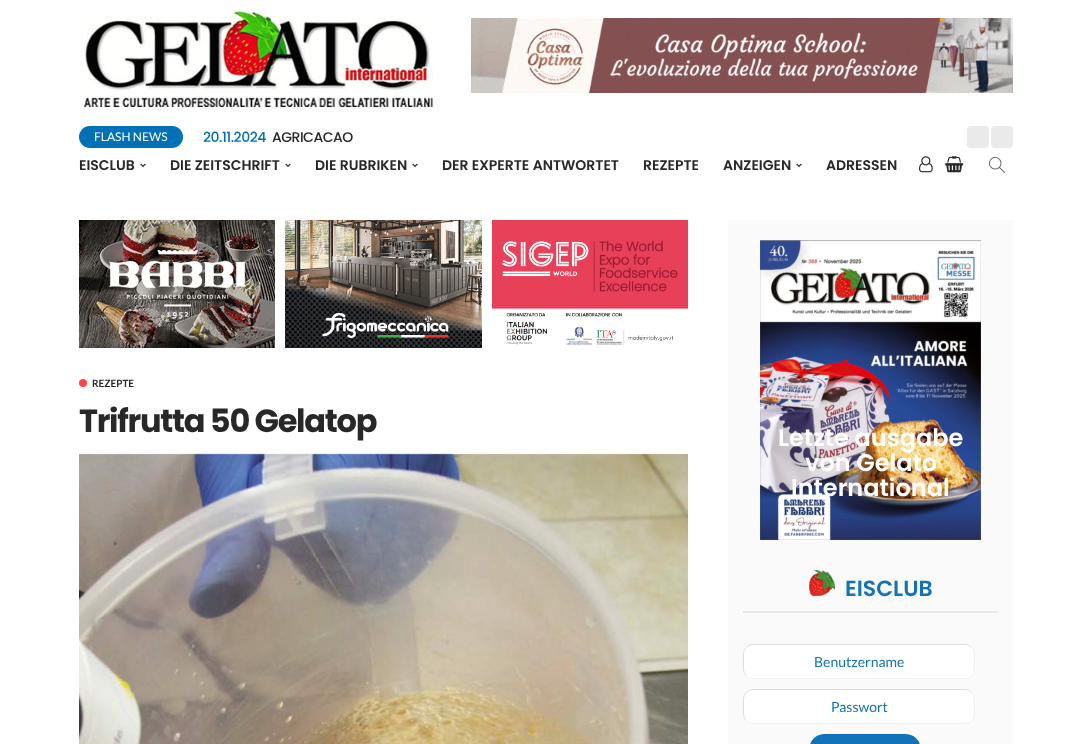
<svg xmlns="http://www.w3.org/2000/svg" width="1092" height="744">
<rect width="100%" height="100%" fill="#fff"/>
<image x="82" y="10" width="352" height="100" href="media/1.png"/>
<image x="471" y="18" width="542" height="75" href="media/2.png"/>
<rect x="79" y="126" width="104" height="22" rx="11" fill="#0071b7"/>
<text x="94" y="141" style="font-family:Lato;font-size:12px;fill:#fff">FLASH NEWS</text>
<text x="203" y="142" style="font-family:Poppins;font-size:14px;font-weight:500;letter-spacing:-0.5px;fill:#0071b7">20.11.2024</text>
<text x="272" y="142" style="font-family:Poppins;font-size:14px;font-weight:500;letter-spacing:-0.5px;fill:#282828">AGRICACAO</text>
<rect x="967" y="126" width="22" height="22" rx="4" fill="#eaeaea"/>
<rect x="991" y="126" width="22" height="22" rx="4" fill="#eaeaea"/>
<text x="79" y="170" style="font-family:Poppins;font-size:14px;font-weight:600;fill:#282828">EISCLUB</text>
<image x="140" y="163" width="6" height="4" href="media/3.png"/>
<text x="170" y="170" style="font-family:Poppins;font-size:14px;font-weight:600;fill:#282828">DIE ZEITSCHRIFT</text>
<image x="285" y="163" width="6" height="4" href="media/3.png"/>
<text x="315" y="170" style="font-family:Poppins;font-size:14px;font-weight:600;fill:#282828">DIE RUBRIKEN</text>
<image x="412" y="163" width="6" height="4" href="media/3.png"/>
<text x="442" y="170" style="font-family:Poppins;font-size:14px;font-weight:600;fill:#282828">DER EXPERTE ANTWORTET</text>
<text x="643" y="170" style="font-family:Poppins;font-size:14px;font-weight:600;fill:#282828">REZEPTE</text>
<text x="723" y="170" style="font-family:Poppins;font-size:14px;font-weight:600;fill:#282828">ANZEIGEN</text>
<image x="796" y="163" width="6" height="4" href="media/3.png"/>
<text x="826" y="170" style="font-family:Poppins;font-size:14px;font-weight:600;fill:#282828">ADRESSEN</text>
<image x="919" y="156" width="14" height="17" href="media/4.png"/>
<image x="945" y="156" width="19" height="17" href="media/5.png"/>
<image x="989" y="157" width="16" height="16" href="media/6.png"/>
<image x="79" y="220" width="196" height="128" href="media/7.png"/>
<image x="285" y="220" width="197" height="128" href="media/8.png"/>
<image x="492" y="220" width="196" height="125" href="media/9.png"/>
<circle cx="83" cy="383" r="4" fill="#ff4545"/>
<text x="92" y="387" style="font-family:Lato;font-size:10px;font-weight:bold;fill:#282828">REZEPTE</text>
<text x="79" y="432" style="font-family:Poppins;font-size:32px;font-weight:bold;letter-spacing:-1.25px;fill:#282828">Trifrutta 50 Gelatop</text>
<image x="79" y="453" width="609" height="291" href="media/10.png"/>
<rect x="728" y="220" width="285" height="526" rx="2" fill="#fafafa"/>
<image x="760" y="240" width="221" height="300" href="media/11.png"/>
<text x="778" y="446" style="font-family:Poppins;font-size:24px;font-weight:600;fill:#fff">Letzte ausgabe</text>
<text x="805" y="471" style="font-family:Poppins;font-size:24px;font-weight:600;fill:#fff">von Gelato</text>
<text x="791" y="496" style="font-family:Poppins;font-size:24px;font-weight:600;fill:#fff">International</text>
<rect x="743" y="611" width="255" height="2" fill="#eaeaea"/>
<image x="809" y="570" width="26" height="26" href="media/12.png"/>
<text x="845" y="596" style="font-family:Poppins;font-size:22px;font-weight:600;fill:#1273ba">EISCLUB</text>
<rect x="743" y="644" width="232" height="35" rx="10" fill="#fff"/>
<path d="M971.5 647.5c2 1.5 3 4 3 6.5v15c0 2.5-1 5-3 6.5c-1.5 2-4 3-6.5 3h-212c-2.5 0-5-1-6.5-3" fill="none" stroke="#f1f1f1"/>
<path d="M746.5 675.5c-2-1.5-3-4-3-6.5v-15c0-2.5 1-5 3-6.5c1.5-2 4-3 6.5-3h212c2.5 0 5 1 6.5 3" fill="none" stroke="#ddd"/>
<text x="814" y="667" style="font-family:Lato;font-size:14px;fill:#1273ba">Benutzername</text>
<rect x="743" y="689" width="232" height="35" rx="10" fill="#fff"/>
<path d="M971.5 692.5c2 1.5 3 4 3 6.5v15c0 2.5-1 5-3 6.5c-1.5 2-4 3-6.5 3h-212c-2.5 0-5-1-6.5-3" fill="none" stroke="#f1f1f1"/>
<path d="M746.5 720.5c-2-1.5-3-4-3-6.5v-15c0-2.5 1-5 3-6.5c1.5-2 4-3 6.5-3h212c2.5 0 5 1 6.5 3" fill="none" stroke="#ddd"/>
<text x="831" y="712" style="font-family:Lato;font-size:14px;fill:#1273ba">Passwort</text>
<rect x="810" y="734" width="110" height="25" rx="15" fill="#1273ba"/>
</svg>
